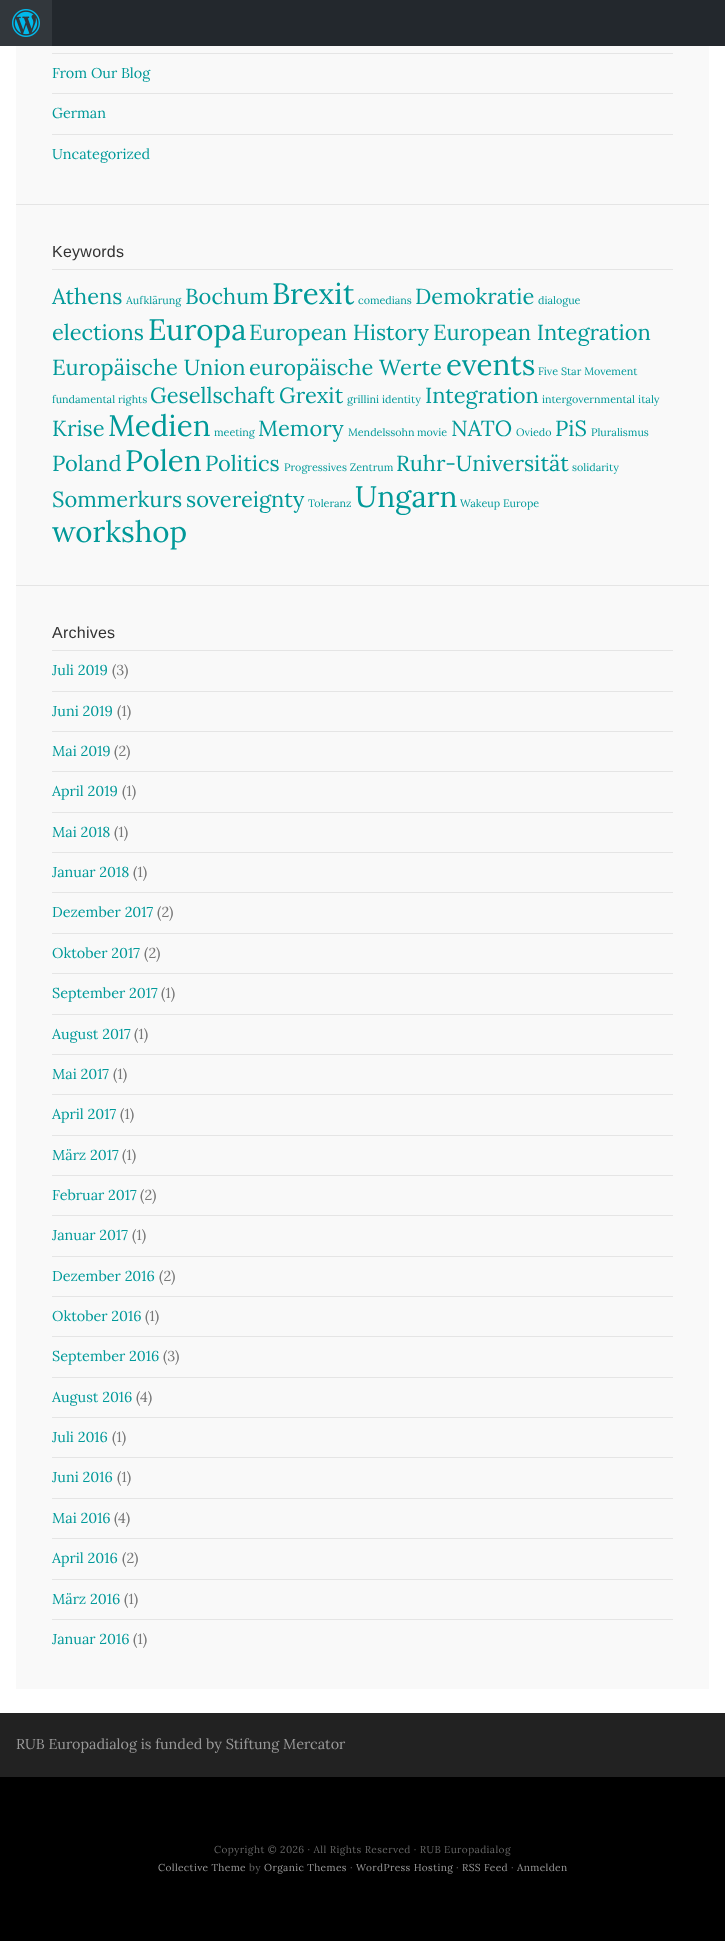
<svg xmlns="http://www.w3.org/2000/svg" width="725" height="1941">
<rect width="100%" height="100%" fill="#222"/>
<rect x="52" width="673" height="46" fill="#23282d"/>
<rect width="52" height="46" fill="#32373c"/>
<image x="12" y="9" width="28" height="28" href="media/1.png"/>
<rect y="46" width="725" height="1667" fill="#fff"/>
<rect x="16" y="46" width="693" height="158" fill="#f9f9f9"/>
<rect x="16" y="204" width="693" height="1" fill="#e5e5e5"/>
<rect x="52" y="53" width="621" height="1" fill="#e5e5e5"/>
<text x="52" y="78" style="font-family:Lora;font-size:14.4px;fill:#099">From Our Blog</text>
<rect x="52" y="93" width="621" height="1" fill="#e5e5e5"/>
<text x="52" y="118" style="font-family:Lora;font-size:14.4px;fill:#099">German</text>
<rect x="52" y="134" width="621" height="1" fill="#e5e5e5"/>
<text x="52" y="159" style="font-family:Lora;font-size:14.4px;fill:#099">Uncategorized</text>
<rect x="16" y="205" width="693" height="380" fill="#f9f9f9"/>
<rect x="16" y="585" width="693" height="1" fill="#e5e5e5"/>
<rect x="52" y="269" width="621" height="1" fill="#e5e5e5"/>
<text x="52" y="257" style="font-family:Arimo;font-size:16px;letter-spacing:0.25px;fill:#333">Keywords</text>
<text x="52" y="304" style="font-family:Lora;font-size:21.9px;fill:#099">Athens</text>
<text x="126" y="304" style="font-family:Lora;font-size:10.75px;fill:#099">Aufklärung</text>
<text x="185" y="304" style="font-family:Lora;font-size:21.9px;fill:#099">Bochum</text>
<text x="272" y="304" style="font-family:Lora;font-size:29.5px;fill:#099">Brexit</text>
<text x="358" y="304" style="font-family:Lora;font-size:10.75px;fill:#099">comedians</text>
<text x="415" y="304" style="font-family:Lora;font-size:21.9px;fill:#099">Demokratie</text>
<text x="538" y="304" style="font-family:Lora;font-size:10.75px;fill:#099">dialogue</text>
<text x="52" y="340" style="font-family:Lora;font-size:21.9px;fill:#099">elections</text>
<text x="148" y="340" style="font-family:Lora;font-size:29.5px;fill:#099">Europa</text>
<text x="249" y="340" style="font-family:Lora;font-size:21.9px;fill:#099">European History</text>
<text x="433" y="340" style="font-family:Lora;font-size:21.9px;fill:#099">European Integration</text>
<text x="52" y="375" style="font-family:Lora;font-size:21.9px;fill:#099">Europäische Union</text>
<text x="249" y="375" style="font-family:Lora;font-size:21.9px;fill:#099">europäische Werte</text>
<text x="446" y="375" style="font-family:Lora;font-size:29.5px;fill:#099">events</text>
<text x="538" y="375" style="font-family:Lora;font-size:10.75px;fill:#099">Five Star Movement</text>
<text x="52" y="403" style="font-family:Lora;font-size:10.75px;fill:#099">fundamental rights</text>
<text x="150" y="403" style="font-family:Lora;font-size:21.9px;fill:#099">Gesellschaft</text>
<text x="279" y="403" style="font-family:Lora;font-size:21.9px;fill:#099">Grexit</text>
<text x="347" y="403" style="font-family:Lora;font-size:10.75px;fill:#099">grillini</text>
<text x="382" y="403" style="font-family:Lora;font-size:10.75px;fill:#099">identity</text>
<text x="425" y="403" style="font-family:Lora;font-size:21.9px;fill:#099">Integration</text>
<text x="542" y="403" style="font-family:Lora;font-size:10.75px;fill:#099">intergovernmental</text>
<text x="638" y="403" style="font-family:Lora;font-size:10.75px;fill:#099">italy</text>
<text x="52" y="436" style="font-family:Lora;font-size:21.9px;fill:#099">Krise</text>
<text x="108" y="436" style="font-family:Lora;font-size:29.5px;fill:#099">Medien</text>
<text x="214" y="436" style="font-family:Lora;font-size:10.75px;fill:#099">meeting</text>
<text x="258" y="436" style="font-family:Lora;font-size:21.9px;fill:#099">Memory</text>
<text x="348" y="436" style="font-family:Lora;font-size:10.75px;fill:#099">Mendelssohn</text>
<text x="417" y="436" style="font-family:Lora;font-size:10.75px;fill:#099">movie</text>
<text x="451" y="436" style="font-family:Lora;font-size:21.9px;fill:#099">NATO</text>
<text x="516" y="436" style="font-family:Lora;font-size:10.75px;fill:#099">Oviedo</text>
<text x="555" y="436" style="font-family:Lora;font-size:21.9px;fill:#099">PiS</text>
<text x="591" y="436" style="font-family:Lora;font-size:10.75px;fill:#099">Pluralismus</text>
<text x="52" y="471" style="font-family:Lora;font-size:21.9px;fill:#099">Poland</text>
<text x="125" y="471" style="font-family:Lora;font-size:29.5px;fill:#099">Polen</text>
<text x="205" y="471" style="font-family:Lora;font-size:21.9px;fill:#099">Politics</text>
<text x="284" y="471" style="font-family:Lora;font-size:10.75px;fill:#099">Progressives Zentrum</text>
<text x="396" y="471" style="font-family:Lora;font-size:21.9px;fill:#099">Ruhr-Universität</text>
<text x="572" y="471" style="font-family:Lora;font-size:10.75px;fill:#099">solidarity</text>
<text x="52" y="507" style="font-family:Lora;font-size:21.9px;fill:#099">Sommerkurs</text>
<text x="186" y="507" style="font-family:Lora;font-size:21.9px;fill:#099">sovereignty</text>
<text x="308" y="507" style="font-family:Lora;font-size:10.75px;fill:#099">Toleranz</text>
<text x="355" y="507" style="font-family:Lora;font-size:29.5px;fill:#099">Ungarn</text>
<text x="460" y="507" style="font-family:Lora;font-size:10.75px;fill:#099">Wakeup Europe</text>
<text x="52" y="542" style="font-family:Lora;font-size:29.5px;fill:#099">workshop</text>
<rect x="16" y="586" width="693" height="1103" fill="#f9f9f9"/>
<rect x="52" y="650" width="621" height="1" fill="#e5e5e5"/>
<text x="52" y="638" style="font-family:Arimo;font-size:16px;letter-spacing:0.25px;fill:#333">Archives</text>
<text x="52" y="675" style="font-family:Lora;font-size:14.4px;fill:#099">Juli 2019</text>
<text x="112" y="675" style="font-family:Lora;font-size:14.4px;fill:#777">(3)</text>
<rect x="52" y="691" width="621" height="1" fill="#e5e5e5"/>
<text x="52" y="716" style="font-family:Lora;font-size:14.4px;fill:#099">Juni 2019</text>
<text x="117" y="716" style="font-family:Lora;font-size:14.4px;fill:#777">(1)</text>
<rect x="52" y="731" width="621" height="1" fill="#e5e5e5"/>
<text x="52" y="756" style="font-family:Lora;font-size:14.4px;fill:#099">Mai 2019</text>
<text x="114" y="756" style="font-family:Lora;font-size:14.4px;fill:#777">(2)</text>
<rect x="52" y="771" width="621" height="1" fill="#e5e5e5"/>
<text x="52" y="796" style="font-family:Lora;font-size:14.4px;fill:#099">April 2019</text>
<text x="122" y="796" style="font-family:Lora;font-size:14.4px;fill:#777">(1)</text>
<rect x="52" y="812" width="621" height="1" fill="#e5e5e5"/>
<text x="52" y="837" style="font-family:Lora;font-size:14.4px;fill:#099">Mai 2018</text>
<text x="114" y="837" style="font-family:Lora;font-size:14.4px;fill:#777">(1)</text>
<rect x="52" y="852" width="621" height="1" fill="#e5e5e5"/>
<text x="52" y="877" style="font-family:Lora;font-size:14.4px;fill:#099">Januar 2018</text>
<text x="133" y="877" style="font-family:Lora;font-size:14.4px;fill:#777">(1)</text>
<rect x="52" y="892" width="621" height="1" fill="#e5e5e5"/>
<text x="52" y="917" style="font-family:Lora;font-size:14.4px;fill:#099">Dezember 2017</text>
<text x="157" y="917" style="font-family:Lora;font-size:14.4px;fill:#777">(2)</text>
<rect x="52" y="933" width="621" height="1" fill="#e5e5e5"/>
<text x="52" y="958" style="font-family:Lora;font-size:14.4px;fill:#099">Oktober 2017</text>
<text x="144" y="958" style="font-family:Lora;font-size:14.4px;fill:#777">(2)</text>
<rect x="52" y="973" width="621" height="1" fill="#e5e5e5"/>
<text x="52" y="998" style="font-family:Lora;font-size:14.4px;fill:#099">September 2017</text>
<text x="161" y="998" style="font-family:Lora;font-size:14.4px;fill:#777">(1)</text>
<rect x="52" y="1014" width="621" height="1" fill="#e5e5e5"/>
<text x="52" y="1039" style="font-family:Lora;font-size:14.4px;fill:#099">August 2017</text>
<text x="134" y="1039" style="font-family:Lora;font-size:14.4px;fill:#777">(1)</text>
<rect x="52" y="1054" width="621" height="1" fill="#e5e5e5"/>
<text x="52" y="1079" style="font-family:Lora;font-size:14.4px;fill:#099">Mai 2017</text>
<text x="113" y="1079" style="font-family:Lora;font-size:14.4px;fill:#777">(1)</text>
<rect x="52" y="1094" width="621" height="1" fill="#e5e5e5"/>
<text x="52" y="1119" style="font-family:Lora;font-size:14.4px;fill:#099">April 2017</text>
<text x="120" y="1119" style="font-family:Lora;font-size:14.4px;fill:#777">(1)</text>
<rect x="52" y="1135" width="621" height="1" fill="#e5e5e5"/>
<text x="52" y="1160" style="font-family:Lora;font-size:14.4px;fill:#099">März 2017</text>
<text x="122" y="1160" style="font-family:Lora;font-size:14.4px;fill:#777">(1)</text>
<rect x="52" y="1175" width="621" height="1" fill="#e5e5e5"/>
<text x="52" y="1200" style="font-family:Lora;font-size:14.4px;fill:#099">Februar 2017</text>
<text x="140" y="1200" style="font-family:Lora;font-size:14.4px;fill:#777">(2)</text>
<rect x="52" y="1215" width="621" height="1" fill="#e5e5e5"/>
<text x="52" y="1240" style="font-family:Lora;font-size:14.4px;fill:#099">Januar 2017</text>
<text x="132" y="1240" style="font-family:Lora;font-size:14.4px;fill:#777">(1)</text>
<rect x="52" y="1256" width="621" height="1" fill="#e5e5e5"/>
<text x="52" y="1281" style="font-family:Lora;font-size:14.4px;fill:#099">Dezember 2016</text>
<text x="159" y="1281" style="font-family:Lora;font-size:14.4px;fill:#777">(2)</text>
<rect x="52" y="1296" width="621" height="1" fill="#e5e5e5"/>
<text x="52" y="1321" style="font-family:Lora;font-size:14.4px;fill:#099">Oktober 2016</text>
<text x="145" y="1321" style="font-family:Lora;font-size:14.4px;fill:#777">(1)</text>
<rect x="52" y="1336" width="621" height="1" fill="#e5e5e5"/>
<text x="52" y="1361" style="font-family:Lora;font-size:14.4px;fill:#099">September 2016</text>
<text x="163" y="1361" style="font-family:Lora;font-size:14.4px;fill:#777">(3)</text>
<rect x="52" y="1377" width="621" height="1" fill="#e5e5e5"/>
<text x="52" y="1402" style="font-family:Lora;font-size:14.4px;fill:#099">August 2016</text>
<text x="136" y="1402" style="font-family:Lora;font-size:14.4px;fill:#777">(4)</text>
<rect x="52" y="1417" width="621" height="1" fill="#e5e5e5"/>
<text x="52" y="1442" style="font-family:Lora;font-size:14.4px;fill:#099">Juli 2016</text>
<text x="112" y="1442" style="font-family:Lora;font-size:14.4px;fill:#777">(1)</text>
<rect x="52" y="1457" width="621" height="1" fill="#e5e5e5"/>
<text x="52" y="1482" style="font-family:Lora;font-size:14.4px;fill:#099">Juni 2016</text>
<text x="117" y="1482" style="font-family:Lora;font-size:14.4px;fill:#777">(1)</text>
<rect x="52" y="1498" width="621" height="1" fill="#e5e5e5"/>
<text x="52" y="1523" style="font-family:Lora;font-size:14.4px;fill:#099">Mai 2016</text>
<text x="114" y="1523" style="font-family:Lora;font-size:14.4px;fill:#777">(4)</text>
<rect x="52" y="1538" width="621" height="1" fill="#e5e5e5"/>
<text x="52" y="1563" style="font-family:Lora;font-size:14.4px;fill:#099">April 2016</text>
<text x="122" y="1563" style="font-family:Lora;font-size:14.4px;fill:#777">(2)</text>
<rect x="52" y="1579" width="621" height="1" fill="#e5e5e5"/>
<text x="52" y="1604" style="font-family:Lora;font-size:14.4px;fill:#099">März 2016</text>
<text x="124" y="1604" style="font-family:Lora;font-size:14.4px;fill:#777">(1)</text>
<rect x="52" y="1619" width="621" height="1" fill="#e5e5e5"/>
<text x="52" y="1644" style="font-family:Lora;font-size:14.4px;fill:#099">Januar 2016</text>
<text x="133" y="1644" style="font-family:Lora;font-size:14.4px;fill:#777">(1)</text>
<text x="16" y="1749" style="font-family:Lora;font-size:14.4px;fill:#999">RUB Europadialog is funded by Stiftung Mercator</text>
<rect y="1777" width="725" height="164" fill="#000"/>
<text x="214" y="1853" style="font-family:Lora;font-size:10.1px;letter-spacing:0.4px;fill:#666">Copyright © 2026 · All Rights Reserved · RUB Europadialog</text>
<text x="158" y="1871" style="font-family:Lora;font-size:10.1px;letter-spacing:0.4px;fill:#999">Collective Theme</text>
<text x="249" y="1871" style="font-family:Lora;font-size:10.1px;letter-spacing:0.4px;fill:#666">by</text>
<text x="264" y="1871" style="font-family:Lora;font-size:10.1px;letter-spacing:0.4px;fill:#999">Organic Themes</text>
<text x="350" y="1871" style="font-family:Lora;font-size:10.1px;letter-spacing:0.4px;fill:#666">·</text>
<text x="356" y="1871" style="font-family:Lora;font-size:10.1px;letter-spacing:0.4px;fill:#999">WordPress Hosting</text>
<text x="456" y="1871" style="font-family:Lora;font-size:10.1px;letter-spacing:0.4px;fill:#666">·</text>
<text x="462" y="1871" style="font-family:Lora;font-size:10.1px;letter-spacing:0.4px;fill:#999">RSS Feed</text>
<text x="511" y="1871" style="font-family:Lora;font-size:10.1px;letter-spacing:0.4px;fill:#666">·</text>
<text x="517" y="1871" style="font-family:Lora;font-size:10.1px;letter-spacing:0.4px;fill:#999">Anmelden</text>
</svg>
